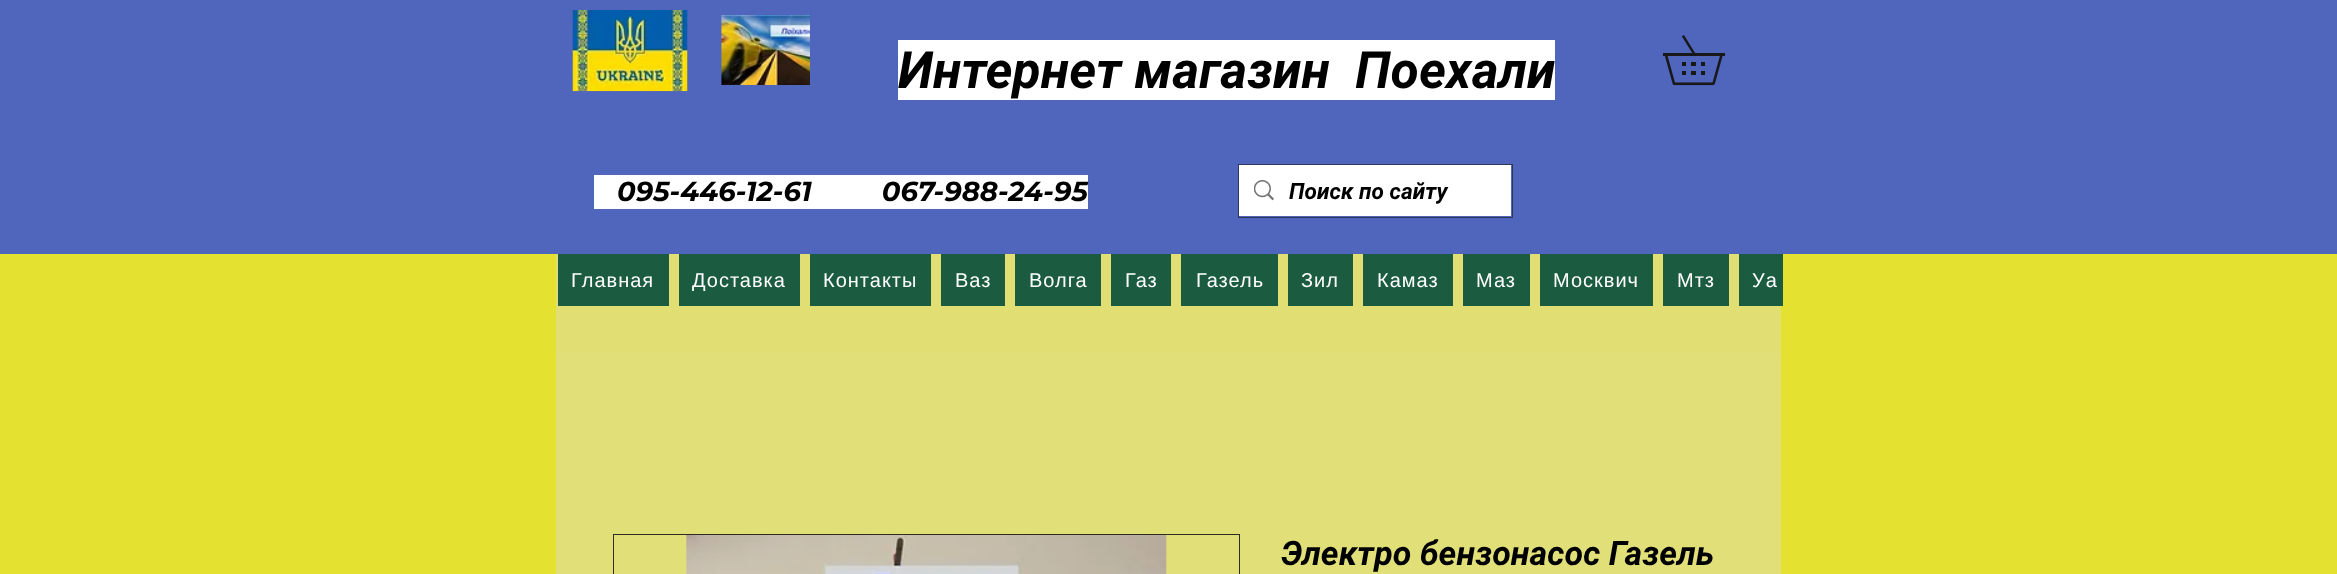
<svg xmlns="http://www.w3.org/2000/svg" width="2337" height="574">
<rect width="100%" height="100%" fill="#e5e130"/>
<rect width="2337" height="254" fill="#5065bc"/>
<image x="572" y="10" width="116" height="82" href="media/1.png"/>
<image x="721" y="15" width="89" height="70" href="media/2.png"/>
<rect x="898" y="40" width="657" height="60" fill="#fff"/>
<text x="898" y="88" style="font-family:Roboto;font-size:51.25px;font-weight:bold;font-style:italic;fill:#000" xml:space="preserve">Интернет магазин  Поехали</text>
<image x="1663" y="35" width="62" height="51" href="media/3.png"/>
<rect x="594" y="175" width="494" height="34" fill="#fff"/>
<text x="617" y="201" style="font-family:Montserrat;font-size:27.5px;font-weight:bold;font-style:italic;fill:#000" xml:space="preserve">095-446-12-61         067-988-24-95</text>
<rect x="1238.5" y="164.5" width="274" height="53" fill="none" stroke="#2e375a"/>
<rect x="1239" y="165" width="272" height="51" fill="#fff"/>
<image x="1254" y="180" width="20" height="21" href="media/4.png"/>
<text x="1289" y="199" style="font-family:Roboto;font-size:22.5px;font-weight:bold;font-style:italic;fill:#000">Поиск по сайту</text>
<rect x="556" y="254" width="1225" height="99" fill="#e1de74"/>
<rect x="558" y="254" width="111" height="52" fill="#1b5b3f"/>
<text x="571" y="287" style="font-family:Liberation Sans;font-size:20px;letter-spacing:1px;fill:#fff">Главная</text>
<rect x="679" y="254" width="121" height="52" fill="#1b5b3f"/>
<text x="692" y="287" style="font-family:Liberation Sans;font-size:20px;letter-spacing:1px;fill:#fff">Доставка</text>
<rect x="810" y="254" width="121" height="52" fill="#1b5b3f"/>
<text x="823" y="287" style="font-family:Liberation Sans;font-size:20px;letter-spacing:1px;fill:#fff">Контакты</text>
<rect x="941" y="254" width="64" height="52" fill="#1b5b3f"/>
<text x="955" y="287" style="font-family:Liberation Sans;font-size:20px;letter-spacing:1px;fill:#fff">Ваз</text>
<rect x="1015" y="254" width="86" height="52" fill="#1b5b3f"/>
<text x="1029" y="287" style="font-family:Liberation Sans;font-size:20px;letter-spacing:1px;fill:#fff">Волга</text>
<rect x="1111" y="254" width="60" height="52" fill="#1b5b3f"/>
<text x="1125" y="287" style="font-family:Liberation Sans;font-size:20px;letter-spacing:1px;fill:#fff">Газ</text>
<rect x="1181" y="254" width="97" height="52" fill="#1b5b3f"/>
<text x="1196" y="287" style="font-family:Liberation Sans;font-size:20px;letter-spacing:1px;fill:#fff">Газель</text>
<rect x="1288" y="254" width="65" height="52" fill="#1b5b3f"/>
<text x="1301" y="287" style="font-family:Liberation Sans;font-size:20px;letter-spacing:1px;fill:#fff">Зил</text>
<rect x="1363" y="254" width="90" height="52" fill="#1b5b3f"/>
<text x="1377" y="287" style="font-family:Liberation Sans;font-size:20px;letter-spacing:1px;fill:#fff">Камаз</text>
<rect x="1463" y="254" width="67" height="52" fill="#1b5b3f"/>
<text x="1476" y="287" style="font-family:Liberation Sans;font-size:20px;letter-spacing:1px;fill:#fff">Маз</text>
<rect x="1540" y="254" width="113" height="52" fill="#1b5b3f"/>
<text x="1553" y="287" style="font-family:Liberation Sans;font-size:20px;letter-spacing:1px;fill:#fff">Москвич</text>
<rect x="1663" y="254" width="66" height="52" fill="#1b5b3f"/>
<text x="1677" y="287" style="font-family:Liberation Sans;font-size:20px;letter-spacing:1px;fill:#fff">Мтз</text>
<rect x="1739" y="254" width="44" height="52" fill="#1b5b3f"/>
<text x="1752" y="287" style="font-family:Liberation Sans;font-size:20px;letter-spacing:1px;fill:#fff">Уа</text>
<rect x="556" y="353" width="1225" height="221" fill="#e0df78"/>
<rect x="613.5" y="534.5" width="626" height="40" fill="none" stroke="#2c2c22"/>
<image x="686" y="535" width="481" height="39" href="media/5.png"/>
<text x="1281" y="565" style="font-family:Roboto;font-size:33.75px;font-weight:bold;font-style:italic;fill:#000">Электро бензонасос Газель</text>
</svg>
